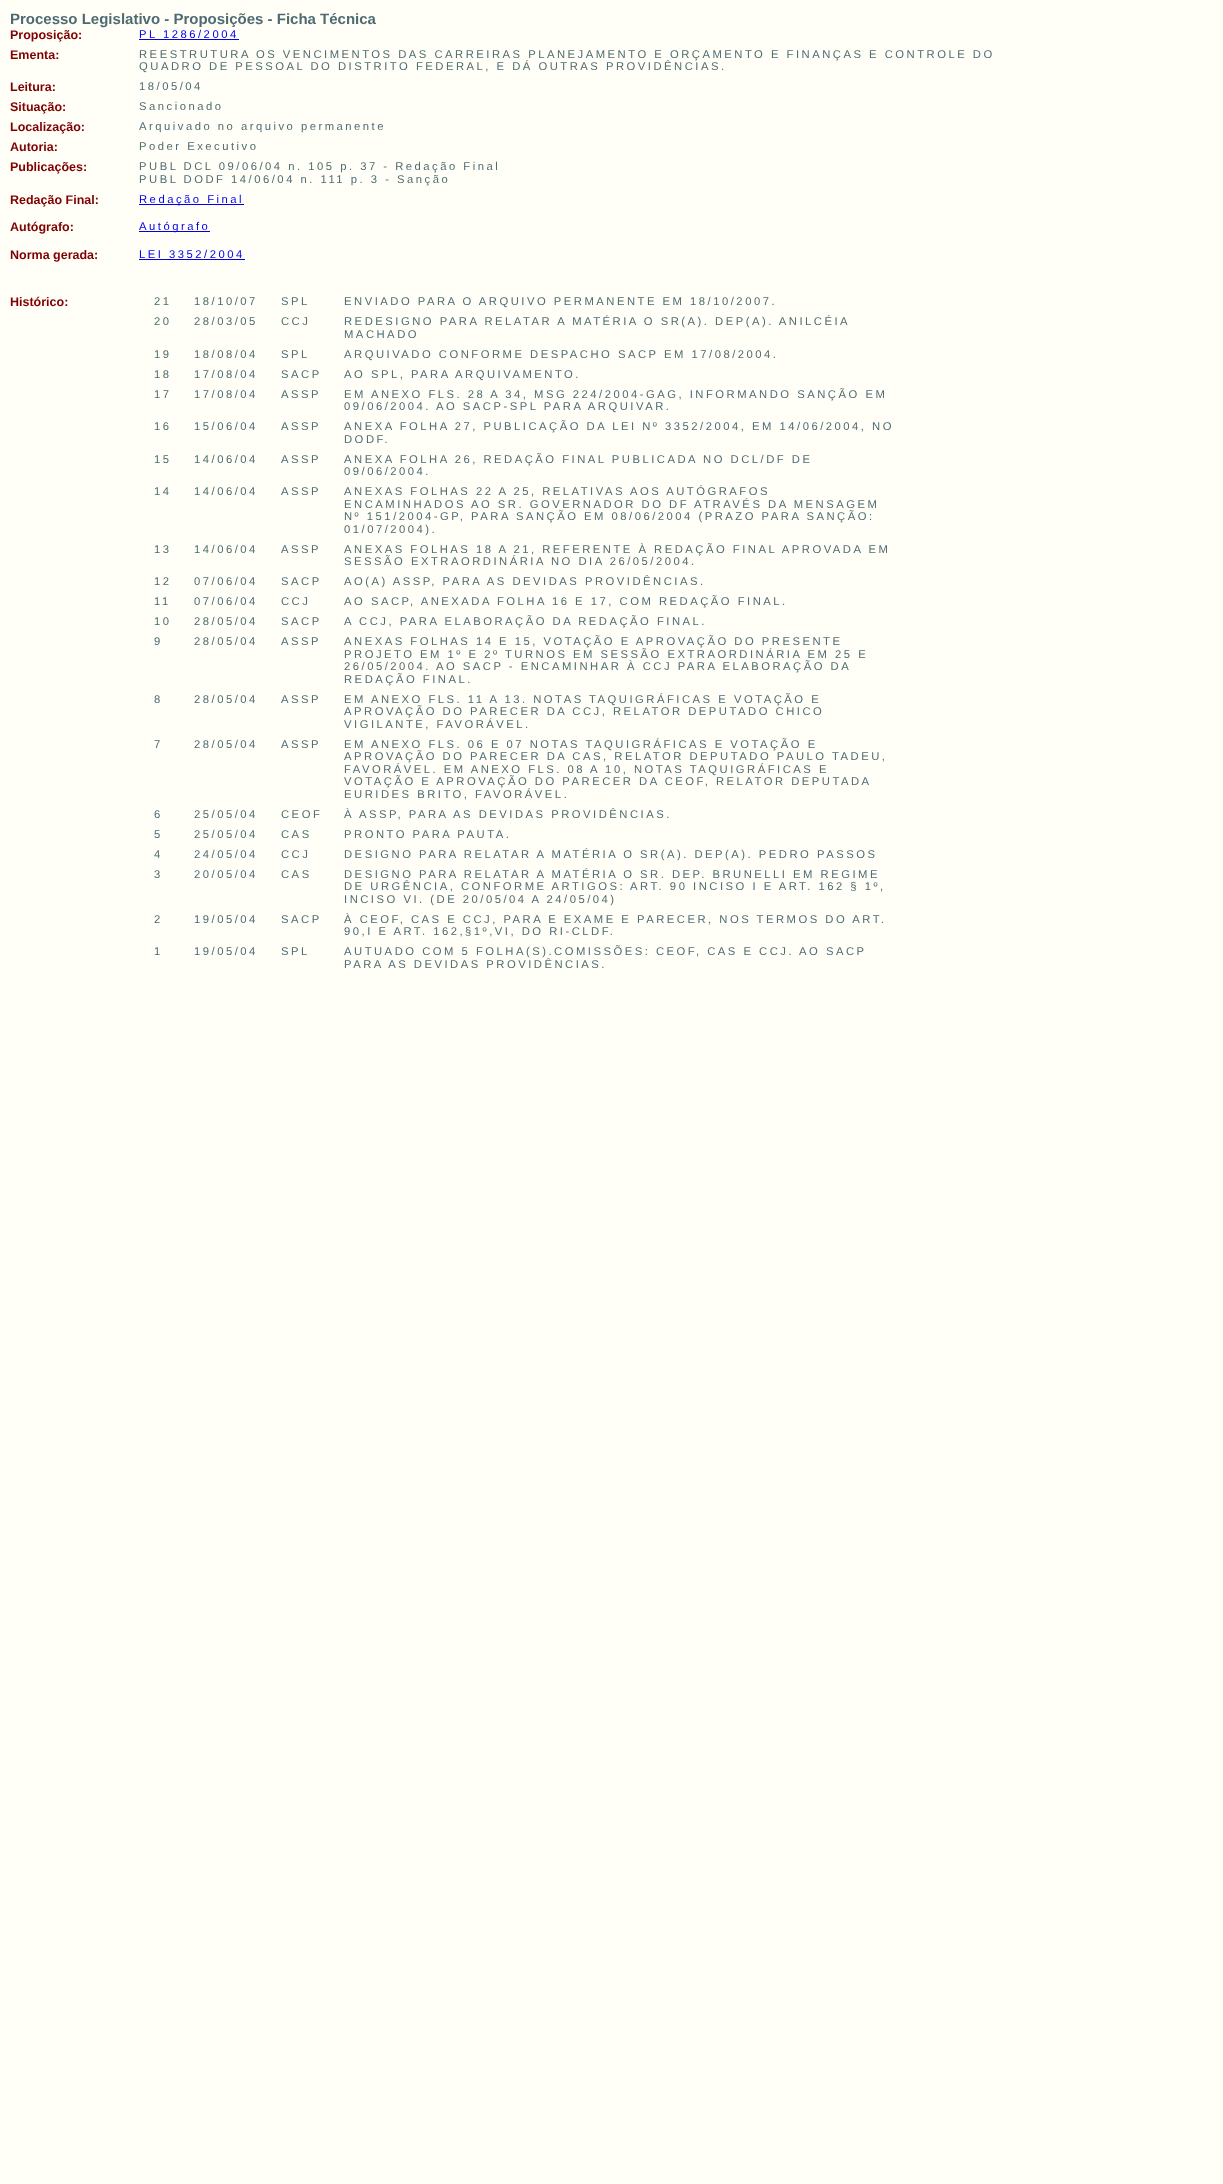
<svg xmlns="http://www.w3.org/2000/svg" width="1223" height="2184">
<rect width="100%" height="100%" fill="#fffff8"/>
<text x="10" y="24" style="font-family:Liberation Sans;font-size:15px;font-weight:bold;fill:#4f6b72">Processo Legislativo - Proposições - Ficha Técnica</text>
<text x="10" y="39" style="font-family:Liberation Sans;font-size:12.5px;font-weight:bold;fill:#800000">Proposição:</text>
<text x="139" y="38" style="font-family:Liberation Sans;font-size:11.25px;letter-spacing:2.5px;fill:#00e">PL 1286/2004</text>
<rect x="139" y="39" width="100" height="1" fill="#00e"/>
<text x="10" y="59" style="font-family:Liberation Sans;font-size:12.5px;font-weight:bold;fill:#800000">Ementa:</text>
<text x="139" y="58" style="font-family:Liberation Sans;font-size:11.25px;letter-spacing:2.5px;fill:#4f6b72">REESTRUTURA OS VENCIMENTOS DAS CARREIRAS PLANEJAMENTO E ORÇAMENTO E FINANÇAS E CONTROLE DO</text>
<text x="139" y="70" style="font-family:Liberation Sans;font-size:11.25px;letter-spacing:2.5px;fill:#4f6b72">QUADRO DE PESSOAL DO DISTRITO FEDERAL, E DÁ OUTRAS PROVIDÊNCIAS.</text>
<text x="10" y="91" style="font-family:Liberation Sans;font-size:12.5px;font-weight:bold;fill:#800000">Leitura:</text>
<text x="139" y="90" style="font-family:Liberation Sans;font-size:11.25px;letter-spacing:2.5px;fill:#4f6b72">18/05/04</text>
<text x="10" y="111" style="font-family:Liberation Sans;font-size:12.5px;font-weight:bold;fill:#800000">Situação:</text>
<text x="139" y="110" style="font-family:Liberation Sans;font-size:11.25px;letter-spacing:2.5px;fill:#4f6b72">Sancionado</text>
<text x="10" y="131" style="font-family:Liberation Sans;font-size:12.5px;font-weight:bold;fill:#800000">Localização:</text>
<text x="139" y="130" style="font-family:Liberation Sans;font-size:11.25px;letter-spacing:2.5px;fill:#4f6b72">Arquivado no arquivo permanente</text>
<text x="10" y="151" style="font-family:Liberation Sans;font-size:12.5px;font-weight:bold;fill:#800000">Autoria:</text>
<text x="139" y="150" style="font-family:Liberation Sans;font-size:11.25px;letter-spacing:2.5px;fill:#4f6b72">Poder Executivo</text>
<text x="10" y="171" style="font-family:Liberation Sans;font-size:12.5px;font-weight:bold;fill:#800000">Publicações:</text>
<text x="139" y="170" style="font-family:Liberation Sans;font-size:11.25px;letter-spacing:2.5px;fill:#4f6b72">PUBL DCL 09/06/04 n. 105 p. 37 - Redação Final</text>
<text x="139" y="183" style="font-family:Liberation Sans;font-size:11.25px;letter-spacing:2.5px;fill:#4f6b72">PUBL DODF 14/06/04 n. 111 p. 3 - Sanção</text>
<text x="10" y="204" style="font-family:Liberation Sans;font-size:12.5px;font-weight:bold;fill:#800000">Redação Final:</text>
<rect x="139" y="204" width="105" height="1" fill="#00e"/>
<text x="139" y="203" style="font-family:Liberation Sans;font-size:11.25px;letter-spacing:2.5px;fill:#00e">Redação Final</text>
<text x="10" y="231" style="font-family:Liberation Sans;font-size:12.5px;font-weight:bold;fill:#800000">Autógrafo:</text>
<rect x="139" y="231" width="71" height="1" fill="#00e"/>
<text x="139" y="230" style="font-family:Liberation Sans;font-size:11.25px;letter-spacing:2.5px;fill:#00e">Autógrafo</text>
<text x="10" y="259" style="font-family:Liberation Sans;font-size:12.5px;font-weight:bold;fill:#800000">Norma gerada:</text>
<text x="139" y="258" style="font-family:Liberation Sans;font-size:11.25px;letter-spacing:2.5px;fill:#00e">LEI 3352/2004</text>
<rect x="139" y="259" width="106" height="1" fill="#00e"/>
<text x="10" y="306" style="font-family:Liberation Sans;font-size:12.5px;font-weight:bold;fill:#800000">Histórico:</text>
<text x="154" y="305" style="font-family:Liberation Sans;font-size:11.25px;letter-spacing:2.5px;fill:#4f6b72">21</text>
<text x="194" y="305" style="font-family:Liberation Sans;font-size:11.25px;letter-spacing:2.5px;fill:#4f6b72">18/10/07</text>
<text x="281" y="305" style="font-family:Liberation Sans;font-size:11.25px;letter-spacing:2.5px;fill:#4f6b72">SPL</text>
<text x="344" y="305" style="font-family:Liberation Sans;font-size:11.25px;letter-spacing:2.5px;fill:#4f6b72">ENVIADO PARA O ARQUIVO PERMANENTE EM 18/10/2007.</text>
<text x="154" y="325" style="font-family:Liberation Sans;font-size:11.25px;letter-spacing:2.5px;fill:#4f6b72">20</text>
<text x="194" y="325" style="font-family:Liberation Sans;font-size:11.25px;letter-spacing:2.5px;fill:#4f6b72">28/03/05</text>
<text x="281" y="325" style="font-family:Liberation Sans;font-size:11.25px;letter-spacing:2.5px;fill:#4f6b72">CCJ</text>
<text x="344" y="325" style="font-family:Liberation Sans;font-size:11.25px;letter-spacing:2.5px;fill:#4f6b72">REDESIGNO PARA RELATAR A MATÉRIA O SR(A). DEP(A). ANILCÉIA</text>
<text x="344" y="338" style="font-family:Liberation Sans;font-size:11.25px;letter-spacing:2.5px;fill:#4f6b72">MACHADO</text>
<text x="154" y="358" style="font-family:Liberation Sans;font-size:11.25px;letter-spacing:2.5px;fill:#4f6b72">19</text>
<text x="194" y="358" style="font-family:Liberation Sans;font-size:11.25px;letter-spacing:2.5px;fill:#4f6b72">18/08/04</text>
<text x="281" y="358" style="font-family:Liberation Sans;font-size:11.25px;letter-spacing:2.5px;fill:#4f6b72">SPL</text>
<text x="344" y="358" style="font-family:Liberation Sans;font-size:11.25px;letter-spacing:2.5px;fill:#4f6b72">ARQUIVADO CONFORME DESPACHO SACP EM 17/08/2004.</text>
<text x="154" y="378" style="font-family:Liberation Sans;font-size:11.25px;letter-spacing:2.5px;fill:#4f6b72">18</text>
<text x="194" y="378" style="font-family:Liberation Sans;font-size:11.25px;letter-spacing:2.5px;fill:#4f6b72">17/08/04</text>
<text x="281" y="378" style="font-family:Liberation Sans;font-size:11.25px;letter-spacing:2.5px;fill:#4f6b72">SACP</text>
<text x="344" y="378" style="font-family:Liberation Sans;font-size:11.25px;letter-spacing:2.5px;fill:#4f6b72">AO SPL, PARA ARQUIVAMENTO.</text>
<text x="154" y="398" style="font-family:Liberation Sans;font-size:11.25px;letter-spacing:2.5px;fill:#4f6b72">17</text>
<text x="194" y="398" style="font-family:Liberation Sans;font-size:11.25px;letter-spacing:2.5px;fill:#4f6b72">17/08/04</text>
<text x="281" y="398" style="font-family:Liberation Sans;font-size:11.25px;letter-spacing:2.5px;fill:#4f6b72">ASSP</text>
<text x="344" y="398" style="font-family:Liberation Sans;font-size:11.25px;letter-spacing:2.5px;fill:#4f6b72">EM ANEXO FLS. 28 A 34, MSG 224/2004-GAG, INFORMANDO SANÇÃO EM</text>
<text x="344" y="410" style="font-family:Liberation Sans;font-size:11.25px;letter-spacing:2.5px;fill:#4f6b72">09/06/2004. AO SACP-SPL PARA ARQUIVAR.</text>
<text x="154" y="430" style="font-family:Liberation Sans;font-size:11.25px;letter-spacing:2.5px;fill:#4f6b72">16</text>
<text x="194" y="430" style="font-family:Liberation Sans;font-size:11.25px;letter-spacing:2.5px;fill:#4f6b72">15/06/04</text>
<text x="281" y="430" style="font-family:Liberation Sans;font-size:11.25px;letter-spacing:2.5px;fill:#4f6b72">ASSP</text>
<text x="344" y="430" style="font-family:Liberation Sans;font-size:11.25px;letter-spacing:2.5px;fill:#4f6b72">ANEXA FOLHA 27, PUBLICAÇÃO DA LEI Nº 3352/2004, EM 14/06/2004, NO</text>
<text x="344" y="443" style="font-family:Liberation Sans;font-size:11.25px;letter-spacing:2.5px;fill:#4f6b72">DODF.</text>
<text x="154" y="463" style="font-family:Liberation Sans;font-size:11.25px;letter-spacing:2.5px;fill:#4f6b72">15</text>
<text x="194" y="463" style="font-family:Liberation Sans;font-size:11.25px;letter-spacing:2.5px;fill:#4f6b72">14/06/04</text>
<text x="281" y="463" style="font-family:Liberation Sans;font-size:11.25px;letter-spacing:2.5px;fill:#4f6b72">ASSP</text>
<text x="344" y="463" style="font-family:Liberation Sans;font-size:11.25px;letter-spacing:2.5px;fill:#4f6b72">ANEXA FOLHA 26, REDAÇÃO FINAL PUBLICADA NO DCL/DF DE</text>
<text x="344" y="475" style="font-family:Liberation Sans;font-size:11.25px;letter-spacing:2.5px;fill:#4f6b72">09/06/2004.</text>
<text x="154" y="495" style="font-family:Liberation Sans;font-size:11.25px;letter-spacing:2.5px;fill:#4f6b72">14</text>
<text x="194" y="495" style="font-family:Liberation Sans;font-size:11.25px;letter-spacing:2.5px;fill:#4f6b72">14/06/04</text>
<text x="281" y="495" style="font-family:Liberation Sans;font-size:11.25px;letter-spacing:2.5px;fill:#4f6b72">ASSP</text>
<text x="344" y="495" style="font-family:Liberation Sans;font-size:11.25px;letter-spacing:2.5px;fill:#4f6b72">ANEXAS FOLHAS 22 A 25, RELATIVAS AOS AUTÓGRAFOS</text>
<text x="344" y="508" style="font-family:Liberation Sans;font-size:11.25px;letter-spacing:2.5px;fill:#4f6b72">ENCAMINHADOS AO SR. GOVERNADOR DO DF ATRAVÉS DA MENSAGEM</text>
<text x="344" y="520" style="font-family:Liberation Sans;font-size:11.25px;letter-spacing:2.5px;fill:#4f6b72">Nº 151/2004-GP, PARA SANÇÃO EM 08/06/2004 (PRAZO PARA SANÇÃO:</text>
<text x="344" y="533" style="font-family:Liberation Sans;font-size:11.25px;letter-spacing:2.5px;fill:#4f6b72">01/07/2004).</text>
<text x="154" y="553" style="font-family:Liberation Sans;font-size:11.25px;letter-spacing:2.5px;fill:#4f6b72">13</text>
<text x="194" y="553" style="font-family:Liberation Sans;font-size:11.25px;letter-spacing:2.5px;fill:#4f6b72">14/06/04</text>
<text x="281" y="553" style="font-family:Liberation Sans;font-size:11.25px;letter-spacing:2.5px;fill:#4f6b72">ASSP</text>
<text x="344" y="553" style="font-family:Liberation Sans;font-size:11.25px;letter-spacing:2.5px;fill:#4f6b72">ANEXAS FOLHAS 18 A 21, REFERENTE À REDAÇÃO FINAL APROVADA EM</text>
<text x="344" y="565" style="font-family:Liberation Sans;font-size:11.25px;letter-spacing:2.5px;fill:#4f6b72">SESSÃO EXTRAORDINÁRIA NO DIA 26/05/2004.</text>
<text x="154" y="585" style="font-family:Liberation Sans;font-size:11.25px;letter-spacing:2.5px;fill:#4f6b72">12</text>
<text x="194" y="585" style="font-family:Liberation Sans;font-size:11.25px;letter-spacing:2.5px;fill:#4f6b72">07/06/04</text>
<text x="281" y="585" style="font-family:Liberation Sans;font-size:11.25px;letter-spacing:2.5px;fill:#4f6b72">SACP</text>
<text x="344" y="585" style="font-family:Liberation Sans;font-size:11.25px;letter-spacing:2.5px;fill:#4f6b72">AO(A) ASSP, PARA AS DEVIDAS PROVIDÊNCIAS.</text>
<text x="154" y="605" style="font-family:Liberation Sans;font-size:11.25px;letter-spacing:2.5px;fill:#4f6b72">11</text>
<text x="194" y="605" style="font-family:Liberation Sans;font-size:11.25px;letter-spacing:2.5px;fill:#4f6b72">07/06/04</text>
<text x="281" y="605" style="font-family:Liberation Sans;font-size:11.25px;letter-spacing:2.5px;fill:#4f6b72">CCJ</text>
<text x="344" y="605" style="font-family:Liberation Sans;font-size:11.25px;letter-spacing:2.5px;fill:#4f6b72">AO SACP, ANEXADA FOLHA 16 E 17, COM REDAÇÃO FINAL.</text>
<text x="154" y="625" style="font-family:Liberation Sans;font-size:11.25px;letter-spacing:2.5px;fill:#4f6b72">10</text>
<text x="194" y="625" style="font-family:Liberation Sans;font-size:11.25px;letter-spacing:2.5px;fill:#4f6b72">28/05/04</text>
<text x="281" y="625" style="font-family:Liberation Sans;font-size:11.25px;letter-spacing:2.5px;fill:#4f6b72">SACP</text>
<text x="344" y="625" style="font-family:Liberation Sans;font-size:11.25px;letter-spacing:2.5px;fill:#4f6b72">A CCJ, PARA ELABORAÇÃO DA REDAÇÃO FINAL.</text>
<text x="154" y="645" style="font-family:Liberation Sans;font-size:11.25px;letter-spacing:2.5px;fill:#4f6b72">9</text>
<text x="194" y="645" style="font-family:Liberation Sans;font-size:11.25px;letter-spacing:2.5px;fill:#4f6b72">28/05/04</text>
<text x="281" y="645" style="font-family:Liberation Sans;font-size:11.25px;letter-spacing:2.5px;fill:#4f6b72">ASSP</text>
<text x="344" y="645" style="font-family:Liberation Sans;font-size:11.25px;letter-spacing:2.5px;fill:#4f6b72">ANEXAS FOLHAS 14 E 15, VOTAÇÃO E APROVAÇÃO DO PRESENTE</text>
<text x="344" y="658" style="font-family:Liberation Sans;font-size:11.25px;letter-spacing:2.5px;fill:#4f6b72">PROJETO EM 1º E 2º TURNOS EM SESSÃO EXTRAORDINÁRIA EM 25 E</text>
<text x="344" y="670" style="font-family:Liberation Sans;font-size:11.25px;letter-spacing:2.5px;fill:#4f6b72">26/05/2004. AO SACP - ENCAMINHAR À CCJ PARA ELABORAÇÃO DA</text>
<text x="344" y="683" style="font-family:Liberation Sans;font-size:11.25px;letter-spacing:2.5px;fill:#4f6b72">REDAÇÃO FINAL.</text>
<text x="154" y="703" style="font-family:Liberation Sans;font-size:11.25px;letter-spacing:2.5px;fill:#4f6b72">8</text>
<text x="194" y="703" style="font-family:Liberation Sans;font-size:11.25px;letter-spacing:2.5px;fill:#4f6b72">28/05/04</text>
<text x="281" y="703" style="font-family:Liberation Sans;font-size:11.25px;letter-spacing:2.5px;fill:#4f6b72">ASSP</text>
<text x="344" y="703" style="font-family:Liberation Sans;font-size:11.25px;letter-spacing:2.5px;fill:#4f6b72">EM ANEXO FLS. 11 A 13. NOTAS TAQUIGRÁFICAS E VOTAÇÃO E</text>
<text x="344" y="715" style="font-family:Liberation Sans;font-size:11.25px;letter-spacing:2.5px;fill:#4f6b72">APROVAÇÃO DO PARECER DA CCJ, RELATOR DEPUTADO CHICO</text>
<text x="344" y="728" style="font-family:Liberation Sans;font-size:11.25px;letter-spacing:2.5px;fill:#4f6b72">VIGILANTE, FAVORÁVEL.</text>
<text x="154" y="748" style="font-family:Liberation Sans;font-size:11.25px;letter-spacing:2.5px;fill:#4f6b72">7</text>
<text x="194" y="748" style="font-family:Liberation Sans;font-size:11.25px;letter-spacing:2.5px;fill:#4f6b72">28/05/04</text>
<text x="281" y="748" style="font-family:Liberation Sans;font-size:11.25px;letter-spacing:2.5px;fill:#4f6b72">ASSP</text>
<text x="344" y="748" style="font-family:Liberation Sans;font-size:11.25px;letter-spacing:2.5px;fill:#4f6b72">EM ANEXO FLS. 06 E 07 NOTAS TAQUIGRÁFICAS E VOTAÇÃO E</text>
<text x="344" y="760" style="font-family:Liberation Sans;font-size:11.25px;letter-spacing:2.5px;fill:#4f6b72">APROVAÇÃO DO PARECER DA CAS, RELATOR DEPUTADO PAULO TADEU,</text>
<text x="344" y="773" style="font-family:Liberation Sans;font-size:11.25px;letter-spacing:2.5px;fill:#4f6b72">FAVORÁVEL. EM ANEXO FLS. 08 A 10, NOTAS TAQUIGRÁFICAS E</text>
<text x="344" y="785" style="font-family:Liberation Sans;font-size:11.25px;letter-spacing:2.5px;fill:#4f6b72">VOTAÇÃO E APROVAÇÃO DO PARECER DA CEOF, RELATOR DEPUTADA</text>
<text x="344" y="798" style="font-family:Liberation Sans;font-size:11.25px;letter-spacing:2.5px;fill:#4f6b72">EURIDES BRITO, FAVORÁVEL.</text>
<text x="154" y="818" style="font-family:Liberation Sans;font-size:11.25px;letter-spacing:2.5px;fill:#4f6b72">6</text>
<text x="194" y="818" style="font-family:Liberation Sans;font-size:11.25px;letter-spacing:2.5px;fill:#4f6b72">25/05/04</text>
<text x="281" y="818" style="font-family:Liberation Sans;font-size:11.25px;letter-spacing:2.5px;fill:#4f6b72">CEOF</text>
<text x="344" y="818" style="font-family:Liberation Sans;font-size:11.25px;letter-spacing:2.5px;fill:#4f6b72">À ASSP, PARA AS DEVIDAS PROVIDÊNCIAS.</text>
<text x="154" y="838" style="font-family:Liberation Sans;font-size:11.25px;letter-spacing:2.5px;fill:#4f6b72">5</text>
<text x="194" y="838" style="font-family:Liberation Sans;font-size:11.25px;letter-spacing:2.5px;fill:#4f6b72">25/05/04</text>
<text x="281" y="838" style="font-family:Liberation Sans;font-size:11.25px;letter-spacing:2.5px;fill:#4f6b72">CAS</text>
<text x="344" y="838" style="font-family:Liberation Sans;font-size:11.25px;letter-spacing:2.5px;fill:#4f6b72">PRONTO PARA PAUTA.</text>
<text x="154" y="858" style="font-family:Liberation Sans;font-size:11.25px;letter-spacing:2.5px;fill:#4f6b72">4</text>
<text x="194" y="858" style="font-family:Liberation Sans;font-size:11.25px;letter-spacing:2.5px;fill:#4f6b72">24/05/04</text>
<text x="281" y="858" style="font-family:Liberation Sans;font-size:11.25px;letter-spacing:2.5px;fill:#4f6b72">CCJ</text>
<text x="344" y="858" style="font-family:Liberation Sans;font-size:11.25px;letter-spacing:2.5px;fill:#4f6b72">DESIGNO PARA RELATAR A MATÉRIA O SR(A). DEP(A). PEDRO PASSOS</text>
<text x="154" y="878" style="font-family:Liberation Sans;font-size:11.25px;letter-spacing:2.5px;fill:#4f6b72">3</text>
<text x="194" y="878" style="font-family:Liberation Sans;font-size:11.25px;letter-spacing:2.5px;fill:#4f6b72">20/05/04</text>
<text x="281" y="878" style="font-family:Liberation Sans;font-size:11.25px;letter-spacing:2.5px;fill:#4f6b72">CAS</text>
<text x="344" y="878" style="font-family:Liberation Sans;font-size:11.25px;letter-spacing:2.5px;fill:#4f6b72">DESIGNO PARA RELATAR A MATÉRIA O SR. DEP. BRUNELLI EM REGIME</text>
<text x="344" y="890" style="font-family:Liberation Sans;font-size:11.25px;letter-spacing:2.5px;fill:#4f6b72">DE URGÊNCIA, CONFORME ARTIGOS: ART. 90 INCISO I E ART. 162 § 1º,</text>
<text x="344" y="903" style="font-family:Liberation Sans;font-size:11.25px;letter-spacing:2.5px;fill:#4f6b72">INCISO VI. (DE 20/05/04 A 24/05/04)</text>
<text x="154" y="923" style="font-family:Liberation Sans;font-size:11.25px;letter-spacing:2.5px;fill:#4f6b72">2</text>
<text x="194" y="923" style="font-family:Liberation Sans;font-size:11.25px;letter-spacing:2.5px;fill:#4f6b72">19/05/04</text>
<text x="281" y="923" style="font-family:Liberation Sans;font-size:11.25px;letter-spacing:2.5px;fill:#4f6b72">SACP</text>
<text x="344" y="923" style="font-family:Liberation Sans;font-size:11.25px;letter-spacing:2.5px;fill:#4f6b72">À CEOF, CAS E CCJ, PARA E EXAME E PARECER, NOS TERMOS DO ART.</text>
<text x="344" y="935" style="font-family:Liberation Sans;font-size:11.25px;letter-spacing:2.5px;fill:#4f6b72">90,I E ART. 162,§1º,VI, DO RI-CLDF.</text>
<text x="154" y="955" style="font-family:Liberation Sans;font-size:11.25px;letter-spacing:2.5px;fill:#4f6b72">1</text>
<text x="194" y="955" style="font-family:Liberation Sans;font-size:11.25px;letter-spacing:2.5px;fill:#4f6b72">19/05/04</text>
<text x="281" y="955" style="font-family:Liberation Sans;font-size:11.25px;letter-spacing:2.5px;fill:#4f6b72">SPL</text>
<text x="344" y="955" style="font-family:Liberation Sans;font-size:11.25px;letter-spacing:2.5px;fill:#4f6b72">AUTUADO COM 5 FOLHA(S).COMISSÕES: CEOF, CAS E CCJ. AO SACP</text>
<text x="344" y="968" style="font-family:Liberation Sans;font-size:11.25px;letter-spacing:2.5px;fill:#4f6b72">PARA AS DEVIDAS PROVIDÊNCIAS.</text>
</svg>
